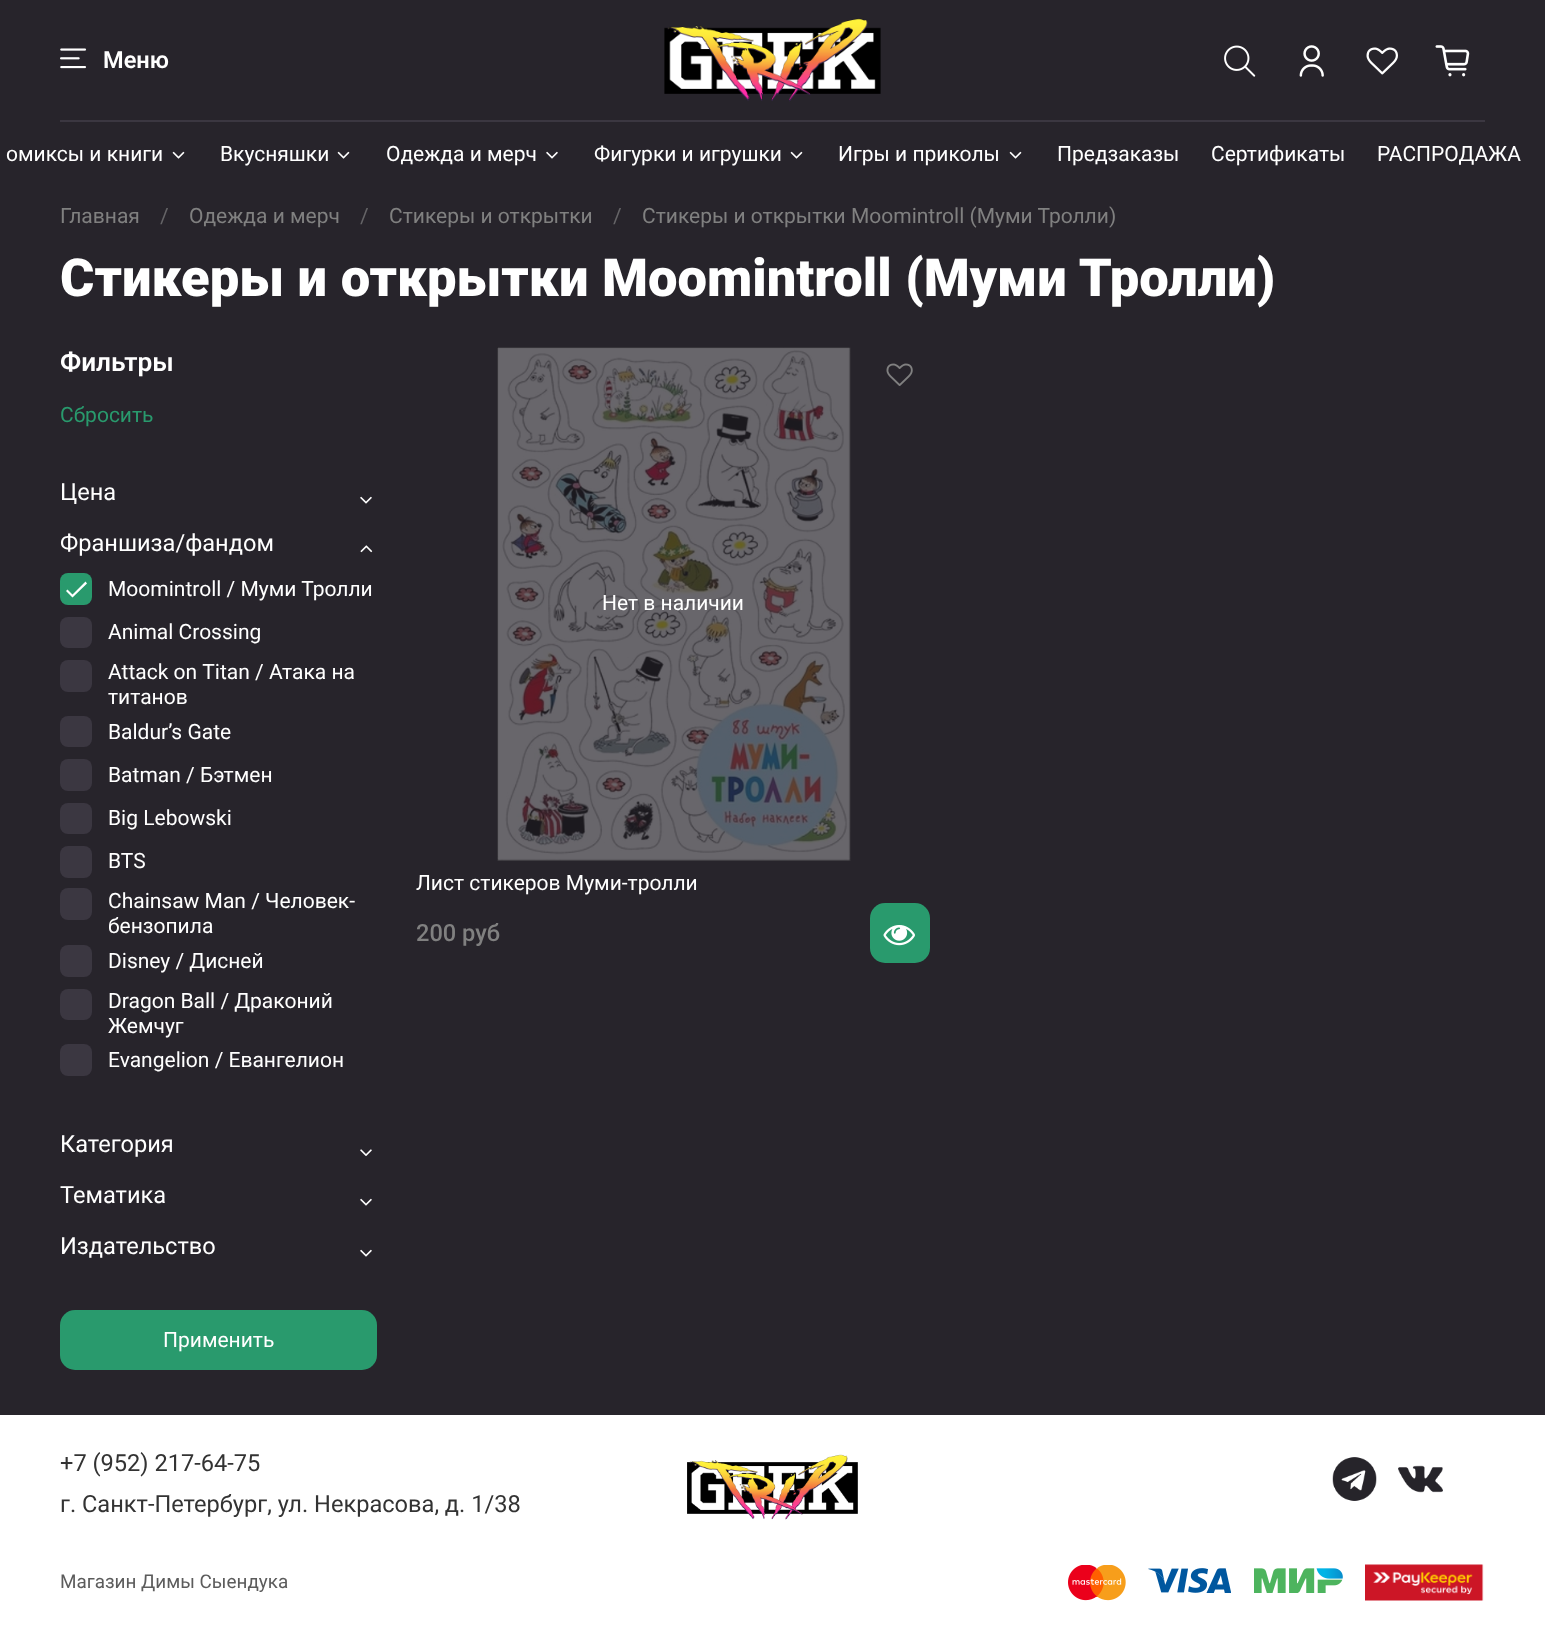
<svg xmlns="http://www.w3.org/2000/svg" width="1545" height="1642">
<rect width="100%" height="100%" fill="#27242b"/>
<image x="60" y="48" width="27" height="21" href="media/1.png"/>
<text x="103" y="68" style="font-family:Roboto;font-size:23.6px;font-weight:600;fill:#fff">Меню</text>
<image x="664" y="18" width="217" height="84" href="media/2.png"/>
<image x="1224" y="45" width="32" height="32" href="media/3.png"/>
<image x="1299" y="45" width="25" height="32" href="media/4.png"/>
<image x="1366" y="47" width="32" height="28" href="media/5.png"/>
<image x="1435" y="45" width="35" height="32" href="media/6.png"/>
<rect x="60" y="120" width="1425" height="2" fill="#3b3741"/>
<text x="6" y="161" style="font-family:Roboto;font-size:21px;fill:#fff">омиксы и книги</text>
<image x="172" y="151" width="13" height="8" href="media/7.png"/>
<text x="220" y="161" style="font-family:Roboto;font-size:21px;fill:#fff">Вкусняшки</text>
<image x="337" y="151" width="13" height="8" href="media/7.png"/>
<text x="386" y="161" style="font-family:Roboto;font-size:21px;fill:#fff">Одежда и мерч</text>
<image x="546" y="151" width="12" height="8" href="media/8.png"/>
<text x="594" y="161" style="font-family:Roboto;font-size:21px;fill:#fff">Фигурки и игрушки</text>
<image x="790" y="151" width="13" height="8" href="media/7.png"/>
<text x="838" y="161" style="font-family:Roboto;font-size:21px;fill:#fff">Игры и приколы</text>
<image x="1009" y="151" width="13" height="8" href="media/7.png"/>
<text x="1057" y="161" style="font-family:Roboto;font-size:21px;fill:#fff">Предзаказы</text>
<text x="1211" y="161" style="font-family:Roboto;font-size:21px;fill:#fff">Сертификаты</text>
<text x="1377" y="161" style="font-family:Roboto;font-size:21px;fill:#fff">РАСПРОДАЖА</text>
<text x="60" y="223" style="font-family:Roboto;font-size:21px;fill:#808080">Главная</text>
<text x="160" y="223" style="font-family:Roboto;font-size:21px;fill:#656467">/</text>
<text x="189" y="223" style="font-family:Roboto;font-size:21px;fill:#808080">Одежда и мерч</text>
<text x="360" y="223" style="font-family:Roboto;font-size:21px;fill:#656467">/</text>
<text x="389" y="223" style="font-family:Roboto;font-size:21px;fill:#808080">Стикеры и открытки</text>
<text x="613" y="223" style="font-family:Roboto;font-size:21px;fill:#656467">/</text>
<text x="642" y="223" style="font-family:Roboto;font-size:21px;fill:#808080">Стикеры и открытки Moomintroll (Муми Тролли)</text>
<text x="60" y="296" word-spacing="0.5" style="font-family:Roboto;font-size:52.5px;font-weight:900;fill:#fff">Стикеры и открытки Moomintroll (Муми Тролли)</text>
<text x="60" y="371" style="font-family:Roboto;font-size:26.25px;font-weight:600;fill:#fff">Фильтры</text>
<text x="60" y="422" style="font-family:Roboto;font-size:21px;fill:#299a6d">Сбросить</text>
<text x="60" y="500" style="font-family:Roboto;font-size:23.6px;fill:#fff">Цена</text>
<image x="360" y="496" width="12" height="8" href="media/8.png"/>
<text x="60" y="551" style="font-family:Roboto;font-size:23.6px;fill:#fff">Франшиза/фандом</text>
<image x="360" y="545" width="13" height="8" href="media/9.png"/>
<rect x="60" y="573" width="32" height="32" rx="8" fill="#299a6d"/>
<path d="M72.5 594.5l-5-5l-1.5 1.5l6.5 6.5l14.5-14l-1.5-2z" fill="#fff"/>
<text x="108" y="596" style="font-family:Roboto;font-size:21px;fill:#fff">Moomintroll / Муми Тролли</text>
<rect x="60" y="617" width="32" height="31" rx="8" fill="#3b3741"/>
<text x="108" y="639" style="font-family:Roboto;font-size:21px;fill:#fff">Animal Crossing</text>
<rect x="60" y="660" width="32" height="32" rx="8" fill="#3b3741"/>
<text x="108" y="679" style="font-family:Roboto;font-size:21px;fill:#fff">Attack on Titan / Атака на</text>
<text x="108" y="704" style="font-family:Roboto;font-size:21px;fill:#fff">титанов</text>
<rect x="60" y="716" width="32" height="31" rx="8" fill="#3b3741"/>
<text x="108" y="739" style="font-family:Roboto;font-size:21px;fill:#fff">Baldur’s Gate</text>
<rect x="60" y="759" width="32" height="32" rx="8" fill="#3b3741"/>
<text x="108" y="782" style="font-family:Roboto;font-size:21px;fill:#fff">Batman / Бэтмен</text>
<rect x="60" y="803" width="32" height="31" rx="8" fill="#3b3741"/>
<text x="108" y="825" style="font-family:Roboto;font-size:21px;fill:#fff">Big Lebowski</text>
<rect x="60" y="846" width="32" height="32" rx="8" fill="#3b3741"/>
<text x="108" y="868" style="font-family:Roboto;font-size:21px;fill:#fff">BTS</text>
<rect x="60" y="888" width="32" height="32" rx="8" fill="#3b3741"/>
<text x="108" y="908" style="font-family:Roboto;font-size:21px;fill:#fff">Chainsaw Man / Человек-</text>
<text x="108" y="933" style="font-family:Roboto;font-size:21px;fill:#fff">бензопила</text>
<rect x="60" y="945" width="32" height="32" rx="8" fill="#3b3741"/>
<text x="108" y="968" style="font-family:Roboto;font-size:21px;fill:#fff">Disney / Дисней</text>
<rect x="60" y="989" width="32" height="31" rx="8" fill="#3b3741"/>
<text x="108" y="1008" style="font-family:Roboto;font-size:21px;fill:#fff">Dragon Ball / Драконий</text>
<text x="108" y="1033" style="font-family:Roboto;font-size:21px;fill:#fff">Жемчуг</text>
<rect x="60" y="1044" width="32" height="32" rx="8" fill="#3b3741"/>
<text x="108" y="1067" style="font-family:Roboto;font-size:21px;fill:#fff">Evangelion / Евангелион</text>
<text x="60" y="1152" style="font-family:Roboto;font-size:23.6px;fill:#fff">Категория</text>
<image x="360" y="1149" width="12" height="7" href="media/10.png"/>
<text x="60" y="1203" style="font-family:Roboto;font-size:23.6px;fill:#fff">Тематика</text>
<image x="360" y="1198" width="12" height="8" href="media/8.png"/>
<text x="60" y="1254" style="font-family:Roboto;font-size:23.6px;fill:#fff">Издательство</text>
<image x="360" y="1249" width="12" height="8" href="media/8.png"/>
<rect x="60" y="1310" width="317" height="60" rx="15" fill="#299a6d"/>
<text x="163" y="1347" style="font-family:Roboto;font-size:21px;fill:#fff">Применить</text>
<image x="497" y="347" width="354" height="514" href="media/11.png"/>
<image x="886" y="363" width="27" height="23" href="media/12.png"/>
<text x="602" y="610" style="font-family:Roboto;font-size:21px;fill:#fff">Нет в наличии</text>
<text x="416" y="890" style="font-family:Roboto;font-size:21px;fill:#fff">Лист стикеров Муми-тролли</text>
<text x="416" y="941" style="font-family:Roboto;font-size:23.6px;font-weight:500;fill:#808080">200 руб</text>
<rect x="870" y="903" width="60" height="60" rx="15" fill="#299a6d"/>
<image x="883" y="925" width="32" height="21" href="media/13.png"/>
<rect y="1415" width="1545" height="227" fill="#fff"/>
<text x="60" y="1471" style="font-family:Roboto;font-size:23.6px;fill:#333">+7 (952) 217-64-75</text>
<text x="60" y="1512" style="font-family:Roboto;font-size:23.6px;fill:#333">г. Санкт-Петербург, ул. Некрасова, д. 1/38</text>
<image x="687" y="1454" width="171" height="66" href="media/14.png"/>
<image x="1332" y="1457" width="45" height="44" href="media/15.png"/>
<image x="1398" y="1465" width="45" height="28" href="media/16.png"/>
<text x="60" y="1588" style="font-family:Roboto;font-size:18.9px;fill:#5c5c5c">Магазин Димы Сыендука</text>
<image x="1068" y="1565" width="58" height="36" href="media/17.png"/>
<image x="1148" y="1568" width="83" height="25" href="media/18.png"/>
<image x="1254" y="1568" width="89" height="25" href="media/19.png"/>
<image x="1365" y="1564" width="119" height="37" href="media/20.png"/>
</svg>
